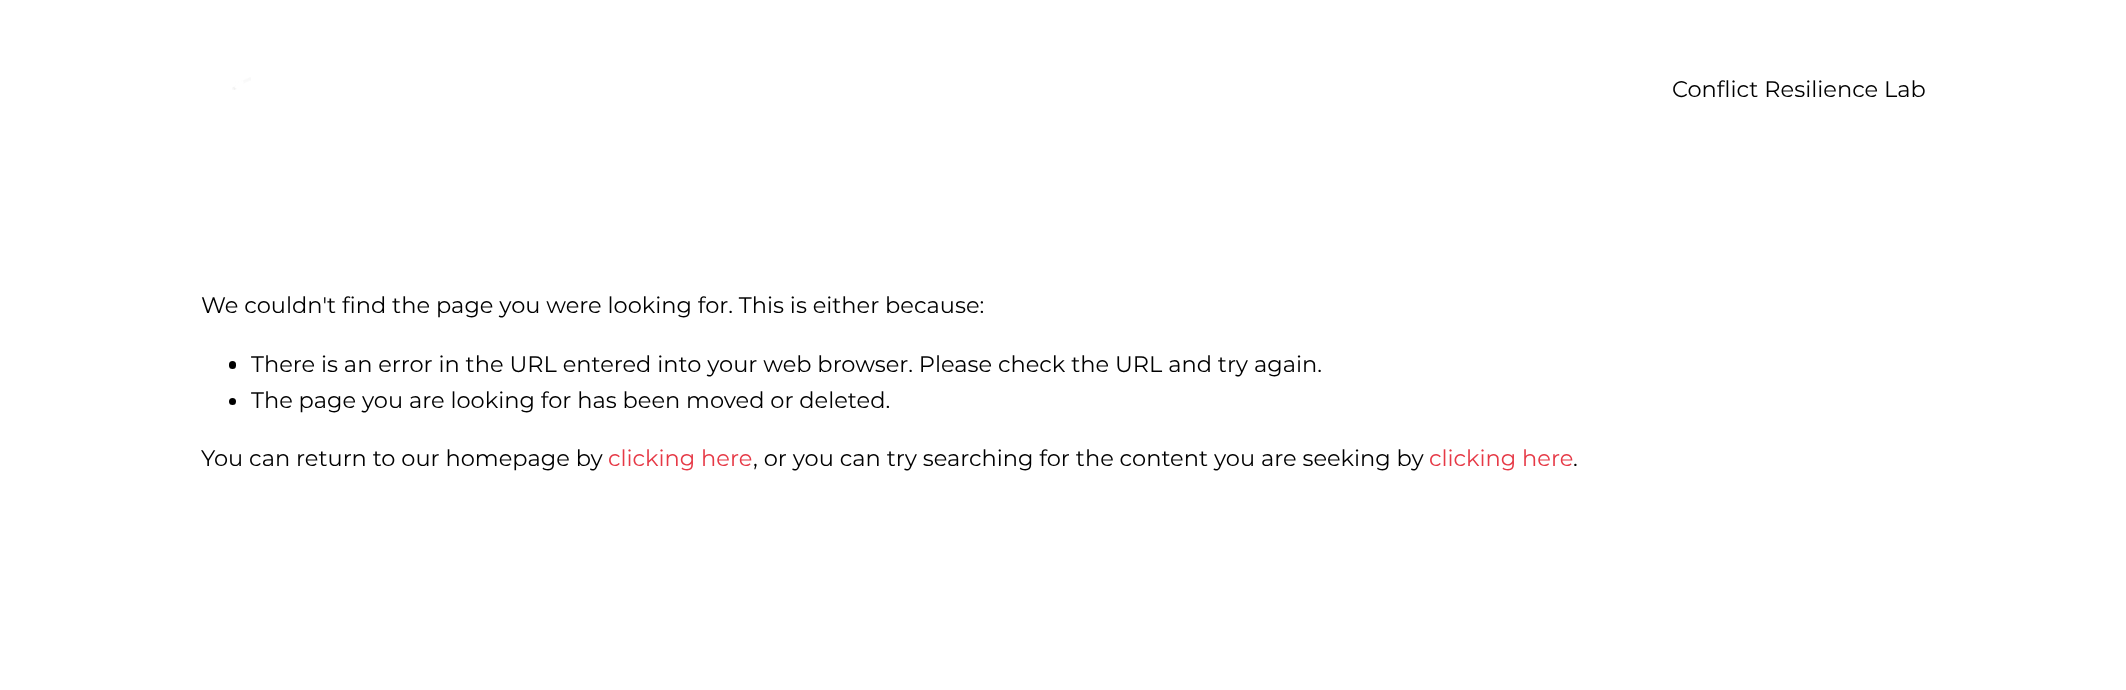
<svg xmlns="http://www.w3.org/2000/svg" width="2126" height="690">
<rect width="100%" height="100%" fill="#fff"/>
<image x="232" y="77" width="19" height="13" href="media/1.png"/>
<text x="1672" y="97" style="font-family:Montserrat;font-size:22.5px;fill:#000">Conflict Resilience Lab</text>
<text x="201" y="313" style="font-family:Montserrat;font-size:22.5px;fill:#000">We couldn't find the page you were looking for. This is either because:</text>
<rect x="229" y="361" width="7" height="8" rx="3.5" fill="#000"/>
<text x="251" y="372" style="font-family:Montserrat;font-size:22.5px;fill:#000">There is an error in the URL entered into your web browser. Please check the URL and try again.</text>
<circle cx="232.5" cy="401.5" r="3.5" fill="#000"/>
<text x="251" y="408" style="font-family:Montserrat;font-size:22.5px;fill:#000">The page you are looking for has been moved or deleted.</text>
<text x="201" y="466" style="font-family:Montserrat;font-size:22.5px;fill:#000">You can return to our homepage by</text>
<text x="608" y="466" style="font-family:Montserrat;font-size:22.5px;fill:#e63946">clicking here</text>
<text x="753" y="466" style="font-family:Montserrat;font-size:22.5px;fill:#000">, or you can try searching for the content you are seeking by</text>
<text x="1429" y="466" style="font-family:Montserrat;font-size:22.5px;fill:#e63946">clicking here</text>
<text x="1573" y="466" style="font-family:Montserrat;font-size:22.5px;fill:#000">.</text>
</svg>
